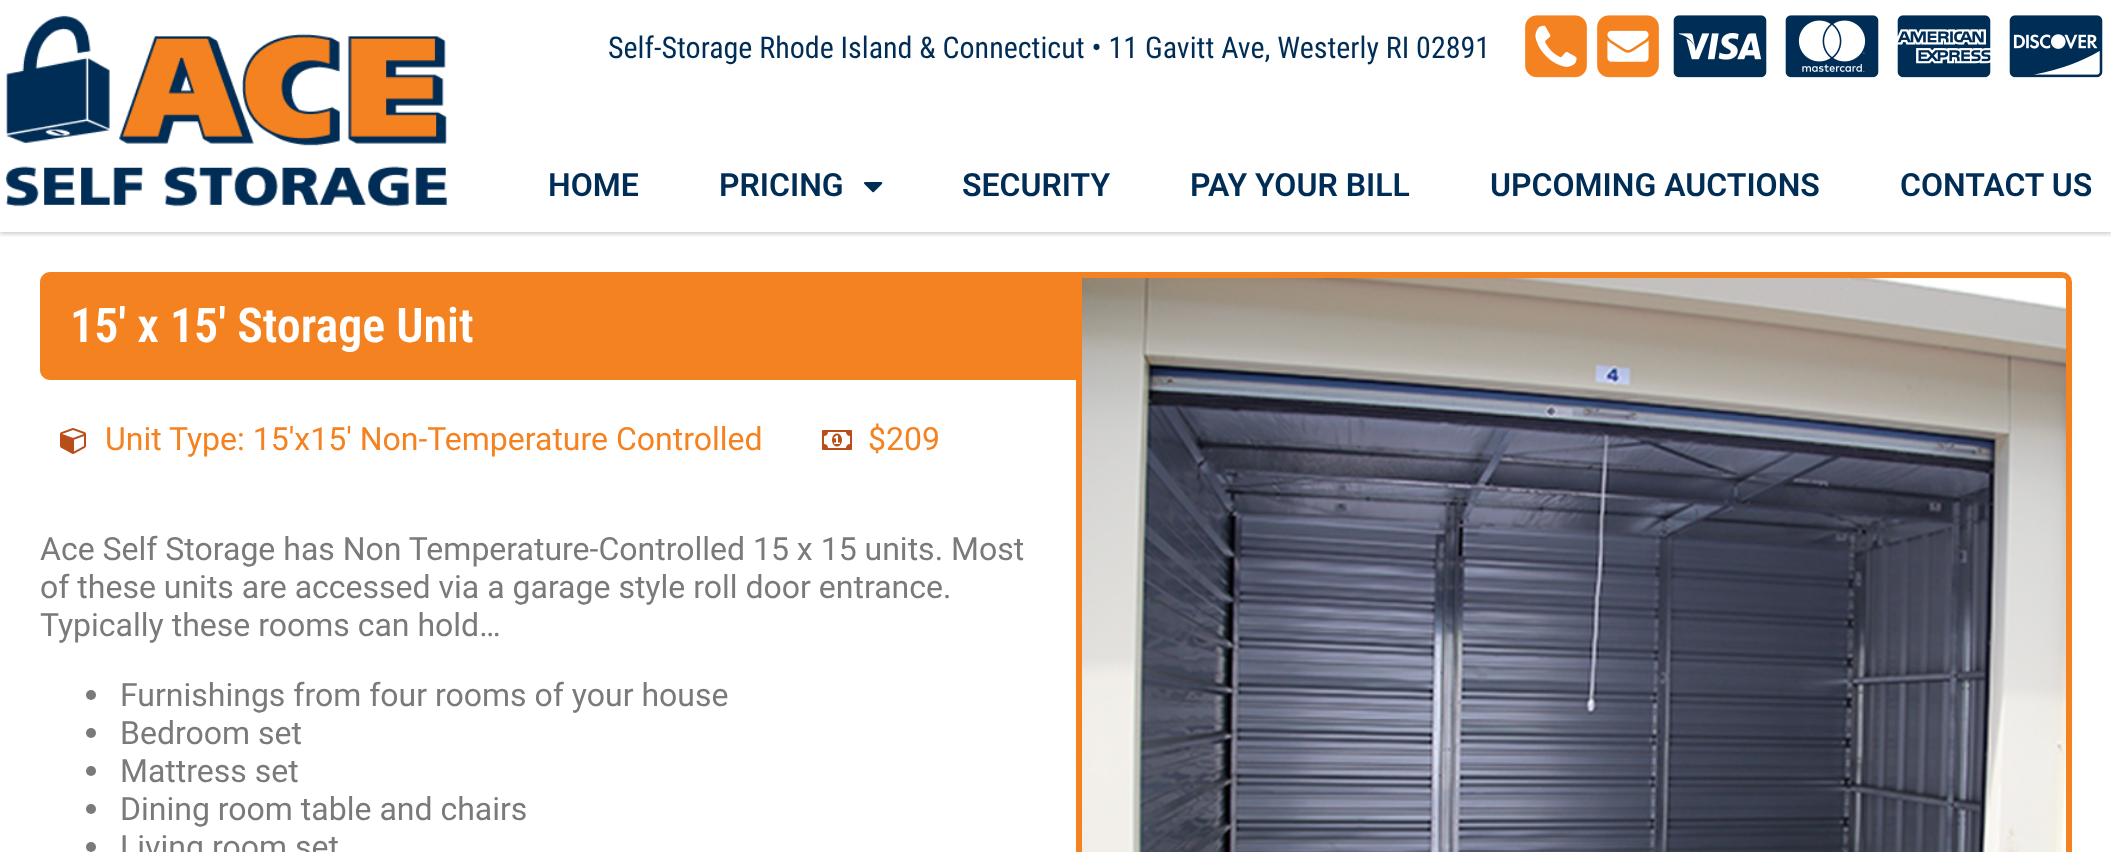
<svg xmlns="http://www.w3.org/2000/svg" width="2111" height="852">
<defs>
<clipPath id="clip1"><rect x="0" y="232" width="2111" height="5"/></clipPath>
</defs>
<rect width="100%" height="100%" fill="#fff"/>
<g clip-path="url(#clip1)">
<rect y="2" width="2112" height="232" fill="#00000033" filter="blur(2px)"/>
</g>
<text x="608" y="58" style="font-family:Roboto Condensed;font-size:30px;fill:#002d56">Self-Storage Rhode Island &amp; Connecticut • 11 Gavitt Ave, Westerly RI 02891</text>
<image x="1525" y="15" width="62" height="63" href="media/1.png"/>
<image x="1597" y="15" width="62" height="63" href="media/2.png"/>
<image x="1673" y="15" width="94" height="63" href="media/3.png"/>
<image x="1785" y="15" width="94" height="63" href="media/4.png"/>
<image x="1897" y="15" width="94" height="63" href="media/5.png"/>
<image x="2009" y="15" width="94" height="63" href="media/6.png"/>
<image x="5" y="15" width="442" height="192" href="media/7.png"/>
<text x="548" y="196" style="font-family:Roboto;font-size:32px;font-weight:600;fill:#002d56">HOME</text>
<text x="719" y="196" style="font-family:Roboto;font-size:32px;font-weight:600;fill:#002d56">PRICING</text>
<image x="864" y="182" width="19" height="11" href="media/8.png"/>
<text x="962" y="196" style="font-family:Roboto;font-size:32px;font-weight:600;fill:#002d56">SECURITY</text>
<text x="1190" y="196" style="font-family:Roboto;font-size:32px;font-weight:600;fill:#002d56">PAY YOUR BILL</text>
<text x="1490" y="196" style="font-family:Roboto;font-size:32px;font-weight:600;fill:#002d56">UPCOMING AUCTIONS</text>
<text x="1900" y="196" style="font-family:Roboto;font-size:32px;font-weight:600;fill:#002d56">CONTACT US</text>
<path d="M50 272h1026v108h-1026c-5.5 0-10-4.5-10-10v-88c0-5.5 4.5-10 10-10z" fill="#f58220"/>
<text x="70" y="342" style="font-family:Roboto Condensed;font-size:48px;font-weight:600;fill:#fff">15' x 15' Storage Unit</text>
<image x="60" y="428" width="26" height="26" href="media/9.png"/>
<text x="105" y="450" style="font-family:Roboto;font-size:32px;fill:#f58220">Unit Type: 15'x15' Non-Temperature Controlled</text>
<image x="822" y="430" width="30" height="20" href="media/10.png"/>
<text x="868" y="450" style="font-family:Roboto;font-size:32px;fill:#f58220">$209</text>
<text x="40" y="560" style="font-family:Roboto;font-size:32px;fill:#7a7a7a">Ace Self Storage has Non Temperature-Controlled 15 x 15 units. Most</text>
<text x="40" y="598" style="font-family:Roboto;font-size:32px;fill:#7a7a7a">of these units are accessed via a garage style roll door entrance.</text>
<text x="40" y="636" style="font-family:Roboto;font-size:32px;fill:#7a7a7a">Typically these rooms can hold…</text>
<circle cx="91" cy="695" r="5" fill="#7a7a7a"/>
<text x="120" y="706" style="font-family:Roboto;font-size:32px;fill:#7a7a7a">Furnishings from four rooms of your house</text>
<circle cx="91" cy="733" r="5" fill="#7a7a7a"/>
<text x="120" y="744" style="font-family:Roboto;font-size:32px;fill:#7a7a7a">Bedroom set</text>
<circle cx="91" cy="771" r="5" fill="#7a7a7a"/>
<text x="120" y="782" style="font-family:Roboto;font-size:32px;fill:#7a7a7a">Mattress set</text>
<circle cx="91" cy="809" r="5" fill="#7a7a7a"/>
<text x="120" y="820" style="font-family:Roboto;font-size:32px;fill:#7a7a7a">Dining room table and chairs</text>
<circle cx="91" cy="847" r="5" fill="#7a7a7a"/>
<text x="120" y="858" style="font-family:Roboto;font-size:32px;fill:#7a7a7a">Living room set</text>
<path d="M1079 275h983c4 0 7 3 7 7v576c0 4-3 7-7 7h-976c-4 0-7-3-7-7z" fill="none" stroke="#f58220" stroke-width="6"/>
<image x="1082" y="278" width="984" height="574" href="media/11.png"/>
</svg>
